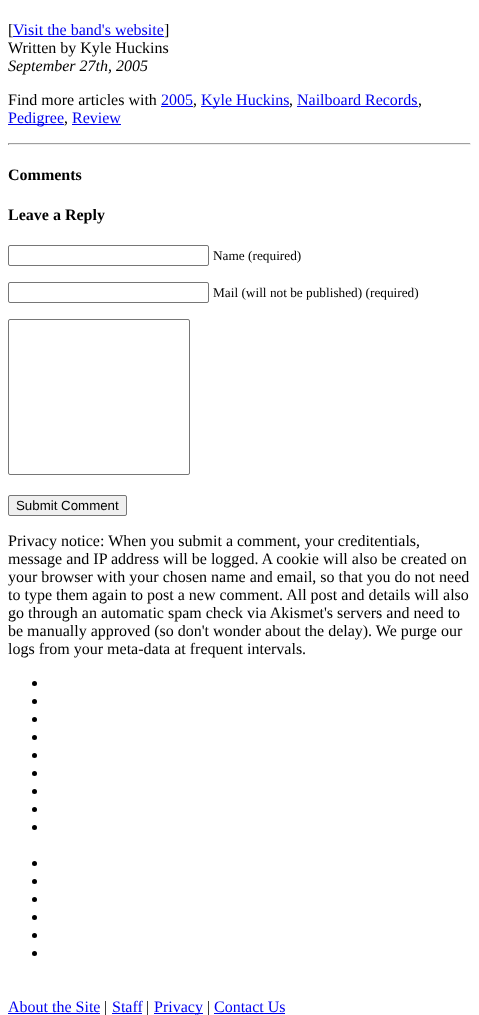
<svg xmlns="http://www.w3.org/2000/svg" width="479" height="1015">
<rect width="100%" height="100%" fill="#fff"/>
<text x="8" y="35" style="font-family:Liberation Serif;font-size:16px;fill:#000">[</text>
<text x="13" y="35" style="font-family:Liberation Serif;font-size:16px;fill:#00e">Visit the band's website</text>
<rect x="13" y="36" width="151" height="1" fill="#00e"/>
<text x="164" y="35" style="font-family:Liberation Serif;font-size:16px;fill:#000">]</text>
<text x="8" y="53" style="font-family:Liberation Serif;font-size:16px;fill:#000">Written by Kyle Huckins</text>
<text x="8" y="71" style="font-family:Liberation Serif;font-size:16px;font-style:italic;fill:#000">September 27th, 2005</text>
<text x="8" y="105" style="font-family:Liberation Serif;font-size:16px;fill:#000">Find more articles with</text>
<text x="161" y="105" style="font-family:Liberation Serif;font-size:16px;fill:#00e">2005</text>
<rect x="161" y="106" width="32" height="1" fill="#00e"/>
<text x="193" y="105" style="font-family:Liberation Serif;font-size:16px;fill:#000">,</text>
<rect x="201" y="106" width="88" height="1" fill="#00e"/>
<text x="201" y="105" style="font-family:Liberation Serif;font-size:16px;fill:#00e">Kyle Huckins</text>
<text x="289" y="105" style="font-family:Liberation Serif;font-size:16px;fill:#000">,</text>
<text x="297" y="105" style="font-family:Liberation Serif;font-size:16px;fill:#00e">Nailboard Records</text>
<rect x="297" y="106" width="121" height="1" fill="#00e"/>
<text x="418" y="105" style="font-family:Liberation Serif;font-size:16px;fill:#000">,</text>
<rect x="8" y="124" width="56" height="1" fill="#00e"/>
<text x="8" y="123" style="font-family:Liberation Serif;font-size:16px;fill:#00e">Pedigree</text>
<text x="64" y="123" style="font-family:Liberation Serif;font-size:16px;fill:#000">,</text>
<text x="72" y="123" style="font-family:Liberation Serif;font-size:16px;fill:#00e">Review</text>
<rect x="72" y="124" width="49" height="1" fill="#00e"/>
<rect x="8" y="143" width="463" height="1" fill="#9f9f9f"/>
<rect x="470" y="143" width="1" height="2" fill="#eee"/>
<rect x="8" y="144" width="463" height="1" fill="#eee"/>
<rect x="8" y="143" width="1" height="2" fill="#9f9f9f"/>
<text x="8" y="180" style="font-family:Liberation Serif;font-size:16px;font-weight:bold;fill:#000">Comments</text>
<text x="8" y="220" style="font-family:Liberation Serif;font-size:16px;font-weight:bold;fill:#000">Leave a Reply</text>
<rect x="8.5" y="245.5" width="200" height="20" rx="1.5" fill="none" stroke="#767676"/>
<text x="213" y="260" style="font-family:Liberation Serif;font-size:13.3px;fill:#000">Name (required)</text>
<rect x="8.5" y="282.5" width="200" height="20" rx="1.5" fill="none" stroke="#767676"/>
<text x="213" y="297" style="font-family:Liberation Serif;font-size:13.3px;fill:#000">Mail (will not be published) (required)</text>
<rect x="8.5" y="319.5" width="181" height="155" rx="1.5" fill="none" stroke="#767676"/>
<rect x="8.5" y="495.5" width="118" height="20" rx="1.5" fill="#efefef" stroke="#767676"/>
<text x="16" y="510" style="font-family:Liberation Sans;font-size:13.3px;fill:#000">Submit Comment</text>
<text x="8" y="546" style="font-family:Liberation Serif;font-size:16px;fill:#000">Privacy notice: When you submit a comment, your creditentials,</text>
<text x="8" y="564" style="font-family:Liberation Serif;font-size:16px;fill:#000">message and IP address will be logged. A cookie will also be created on</text>
<text x="8" y="582" style="font-family:Liberation Serif;font-size:16px;fill:#000">your browser with your chosen name and email, so that you do not need</text>
<text x="8" y="600" style="font-family:Liberation Serif;font-size:16px;fill:#000">to type them again to post a new comment. All post and details will also</text>
<text x="8" y="618" style="font-family:Liberation Serif;font-size:16px;fill:#000">go through an automatic spam check via Akismet's servers and need to</text>
<text x="8" y="636" style="font-family:Liberation Serif;font-size:16px;fill:#000">be manually approved (so don't wonder about the delay). We purge our</text>
<text x="8" y="654" style="font-family:Liberation Serif;font-size:16px;fill:#000">logs from your meta-data at frequent intervals.</text>
<circle cx="34.5" cy="683.5" r="2.5" fill="#000"/>
<circle cx="34.5" cy="701.5" r="2.5" fill="#000"/>
<circle cx="34.5" cy="719.5" r="2.5" fill="#000"/>
<circle cx="34.5" cy="737.5" r="2.5" fill="#000"/>
<circle cx="34.5" cy="755.5" r="2.5" fill="#000"/>
<circle cx="34.5" cy="773.5" r="2.5" fill="#000"/>
<circle cx="34.5" cy="791.5" r="2.5" fill="#000"/>
<circle cx="34.5" cy="809.5" r="2.5" fill="#000"/>
<circle cx="34.5" cy="827.5" r="2.5" fill="#000"/>
<circle cx="34.5" cy="863.5" r="2.5" fill="#000"/>
<circle cx="34.5" cy="881.5" r="2.5" fill="#000"/>
<circle cx="34.5" cy="899.5" r="2.5" fill="#000"/>
<circle cx="34.5" cy="917.5" r="2.5" fill="#000"/>
<circle cx="34.5" cy="935.5" r="2.5" fill="#000"/>
<circle cx="34.5" cy="953.5" r="2.5" fill="#000"/>
<text x="8" y="1012" style="font-family:Liberation Serif;font-size:16px;fill:#00e">About the Site</text>
<rect x="8" y="1013" width="92" height="1" fill="#00e"/>
<text x="104" y="1012" style="font-family:Liberation Serif;font-size:16px;fill:#000">|</text>
<text x="112" y="1012" style="font-family:Liberation Serif;font-size:16px;fill:#00e">Staff</text>
<rect x="112" y="1013" width="30" height="1" fill="#00e"/>
<text x="146" y="1012" style="font-family:Liberation Serif;font-size:16px;fill:#000">|</text>
<rect x="154" y="1013" width="49" height="1" fill="#00e"/>
<text x="154" y="1012" style="font-family:Liberation Serif;font-size:16px;fill:#00e">Privacy</text>
<text x="207" y="1012" style="font-family:Liberation Serif;font-size:16px;fill:#000">|</text>
<text x="214" y="1012" style="font-family:Liberation Serif;font-size:16px;fill:#00e">Contact Us</text>
<rect x="214" y="1013" width="71" height="1" fill="#00e"/>
</svg>
